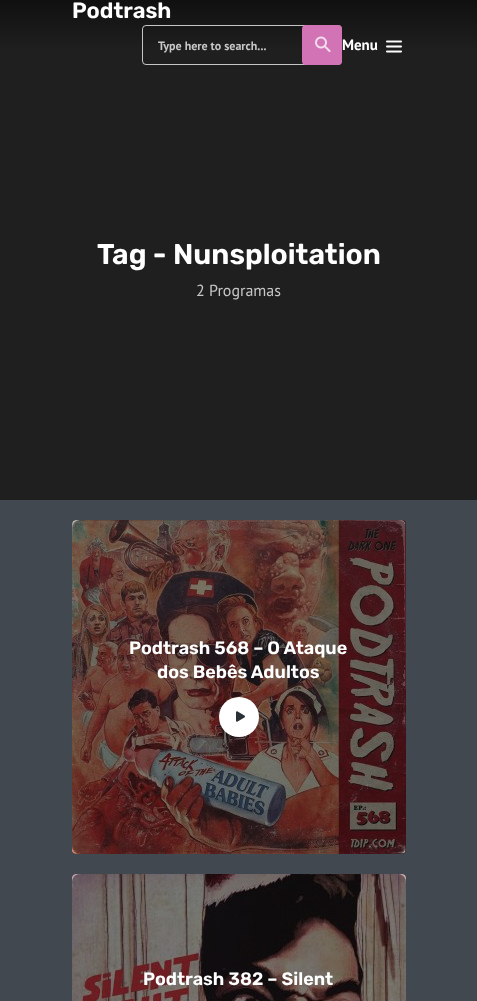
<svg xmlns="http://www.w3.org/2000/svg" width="477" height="1001">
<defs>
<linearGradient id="g1" gradientUnits="userSpaceOnUse" x1="239" y1="0" x2="239" y2="50"><stop offset="0" stop-color="#101010"/><stop offset="1" stop-color="#1f1f1f"/></linearGradient>
</defs>
<rect width="100%" height="100%" fill="#424850"/>
<rect width="477" height="50" fill="url(#g1)"/>
<text x="72" y="18" style="font-family:Rubik;font-size:22px;font-weight:600;fill:#fff">Podtrash</text>
<rect y="50" width="477" height="450" fill="#1f1f1f"/>
<rect x="142.5" y="25.5" width="199" height="39" rx="3.5" fill="none" stroke="#ffffffbf"/>
<text x="158" y="50" style="font-family:PT Sans;font-size:12px;font-weight:bold;fill:#c7c7c7">Type here to search...</text>
<rect x="302" y="25" width="40" height="40" rx="4" fill="#d273b5"/>
<image x="315" y="36" width="16" height="17" href="media/1.png"/>
<text x="342" y="50" style="font-family:PT Sans;font-size:15px;font-weight:bold;fill:#fff">Menu</text>
<image x="386" y="40" width="16" height="13" href="media/2.png"/>
<text x="97" y="264" style="font-family:Rubik;font-size:28.6px;font-weight:600;fill:#fff">Tag - Nunsploitation</text>
<text x="196" y="296" style="font-family:PT Sans;font-size:16px;fill:#c7c7c7">2 Programas</text>
<image x="72" y="520" width="334" height="334" href="media/3.png"/>
<rect x="72" y="520" width="334" height="334" rx="8" fill="#080a0b80"/>
<text x="129" y="654" style="font-family:Rubik;font-size:18px;font-weight:600;fill:#fff">Podtrash 568 – O Ataque</text>
<text x="157" y="678" style="font-family:Rubik;font-size:18px;font-weight:600;fill:#fff">dos Bebês Adultos</text>
<rect x="219" y="702" width="40" height="40" rx="20" fill="#0000001a" filter="blur(5px)"/>
<circle cx="239" cy="717" r="20" fill="#fff"/>
<image x="236" y="711" width="9" height="11" href="media/4.png"/>
<image x="72" y="874" width="334" height="127" href="media/5.png"/>
<rect x="72" y="874" width="334" height="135" rx="8" fill="#080a0b80"/>
<text x="143" y="985" style="font-family:Rubik;font-size:18px;font-weight:600;fill:#fff">Podtrash 382 – Silent</text>
</svg>
